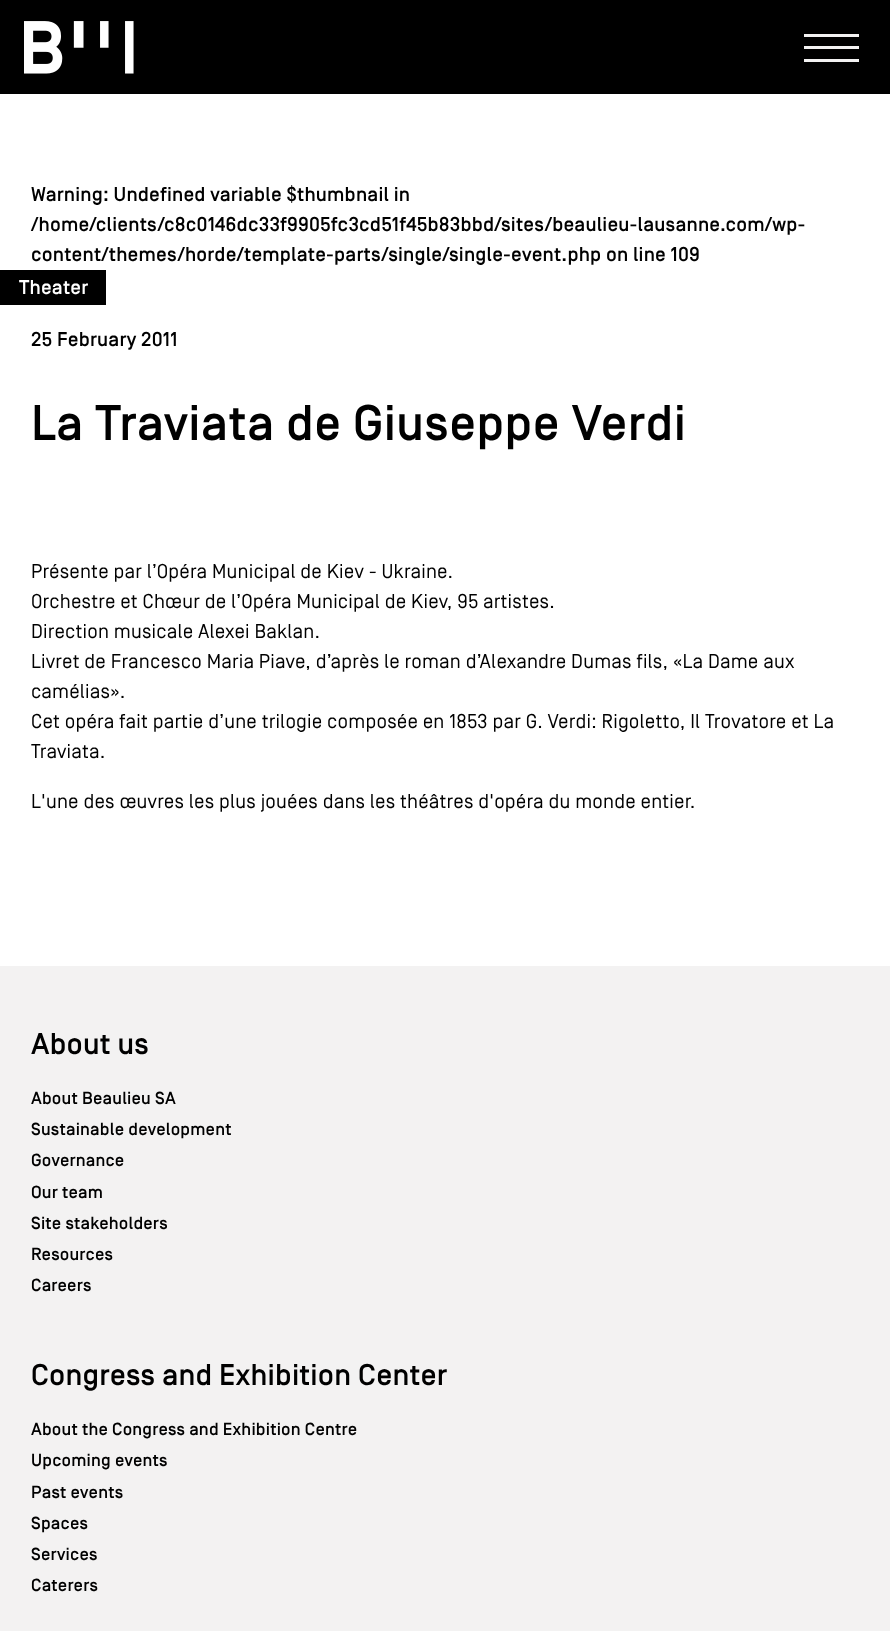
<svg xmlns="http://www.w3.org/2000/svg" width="890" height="1631">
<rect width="100%" height="100%" fill="#fff"/>
<rect width="890" height="94" fill="#000"/>
<image x="24" y="21" width="110" height="53" href="media/1.png"/>
<rect x="804" y="34" width="55" height="3" fill="#f3f2f2"/>
<rect x="804" y="46" width="55" height="3" fill="#f3f2f2"/>
<rect x="804" y="59" width="55" height="3" fill="#f3f2f2"/>
<text x="31" y="201" style="font-family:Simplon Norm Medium;font-size:20px;font-weight:500;letter-spacing:0.2px;fill:#000">Warning: Undefined variable $thumbnail in</text>
<text x="31" y="231" style="font-family:Simplon Norm Medium;font-size:20px;font-weight:500;letter-spacing:0.2px;fill:#000">/home/clients/c8c0146dc33f9905fc3cd51f45b83bbd/sites/beaulieu-lausanne.com/wp-</text>
<text x="31" y="261" style="font-family:Simplon Norm Medium;font-size:20px;font-weight:500;letter-spacing:0.2px;fill:#000">content/themes/horde/template-parts/single/single-event.php on line 109</text>
<rect y="270" width="106" height="35" fill="#000"/>
<text x="19" y="294" style="font-family:Simplon Norm Medium;font-size:20px;font-weight:500;letter-spacing:0.2px;fill:#fff">Theater</text>
<text x="31" y="346" style="font-family:Simplon Norm Medium;font-size:20px;font-weight:500;letter-spacing:0.2px;fill:#000">25 February 2011</text>
<text x="31" y="440" style="font-family:Simplon Norm Medium;font-size:50px;font-weight:500;letter-spacing:0.5px;fill:#000">La Traviata de Giuseppe Verdi</text>
<text x="31" y="578" style="font-family:Simplon Norm Medium;font-size:20px;letter-spacing:0.2px;fill:#000">Présente par l’Opéra Municipal de Kiev - Ukraine.</text>
<text x="31" y="608" style="font-family:Simplon Norm Medium;font-size:20px;letter-spacing:0.2px;fill:#000">Orchestre et Chœur de l’Opéra Municipal de Kiev, 95 artistes.</text>
<text x="31" y="638" style="font-family:Simplon Norm Medium;font-size:20px;letter-spacing:0.2px;fill:#000">Direction musicale Alexei Baklan.</text>
<text x="31" y="668" style="font-family:Simplon Norm Medium;font-size:20px;letter-spacing:0.2px;fill:#000">Livret de Francesco Maria Piave, d’après le roman d’Alexandre Dumas fils, «La Dame aux</text>
<text x="31" y="698" style="font-family:Simplon Norm Medium;font-size:20px;letter-spacing:0.2px;fill:#000">camélias».</text>
<text x="31" y="728" style="font-family:Simplon Norm Medium;font-size:20px;letter-spacing:0.2px;fill:#000">Cet opéra fait partie d’une trilogie composée en 1853 par G. Verdi: Rigoletto, Il Trovatore et La</text>
<text x="31" y="758" style="font-family:Simplon Norm Medium;font-size:20px;letter-spacing:0.2px;fill:#000">Traviata.</text>
<text x="31" y="808" style="font-family:Simplon Norm Medium;font-size:20px;letter-spacing:0.2px;fill:#000">L'une des œuvres les plus jouées dans les théâtres d'opéra du monde entier.</text>
<rect y="966" width="890" height="665" fill="#f3f2f2"/>
<text x="31" y="1054" style="font-family:Simplon Norm Medium;font-size:30px;font-weight:500;letter-spacing:0.2px;fill:#000">About us</text>
<text x="31" y="1104" style="font-family:Simplon Norm Medium;font-size:17.5px;font-weight:500;letter-spacing:0.2px;fill:#000">About Beaulieu SA</text>
<text x="31" y="1135" style="font-family:Simplon Norm Medium;font-size:17.5px;font-weight:500;letter-spacing:0.2px;fill:#000">Sustainable development</text>
<text x="31" y="1166" style="font-family:Simplon Norm Medium;font-size:17.5px;font-weight:500;letter-spacing:0.2px;fill:#000">Governance</text>
<text x="31" y="1198" style="font-family:Simplon Norm Medium;font-size:17.5px;font-weight:500;letter-spacing:0.2px;fill:#000">Our team</text>
<text x="31" y="1229" style="font-family:Simplon Norm Medium;font-size:17.5px;font-weight:500;letter-spacing:0.2px;fill:#000">Site stakeholders</text>
<text x="31" y="1260" style="font-family:Simplon Norm Medium;font-size:17.5px;font-weight:500;letter-spacing:0.2px;fill:#000">Resources</text>
<text x="31" y="1291" style="font-family:Simplon Norm Medium;font-size:17.5px;font-weight:500;letter-spacing:0.2px;fill:#000">Careers</text>
<text x="31" y="1385" style="font-family:Simplon Norm Medium;font-size:30px;font-weight:500;letter-spacing:0.2px;fill:#000">Congress and Exhibition Center</text>
<text x="31" y="1435" style="font-family:Simplon Norm Medium;font-size:17.5px;font-weight:500;letter-spacing:0.2px;fill:#000">About the Congress and Exhibition Centre</text>
<text x="31" y="1466" style="font-family:Simplon Norm Medium;font-size:17.5px;font-weight:500;letter-spacing:0.2px;fill:#000">Upcoming events</text>
<text x="31" y="1498" style="font-family:Simplon Norm Medium;font-size:17.5px;font-weight:500;letter-spacing:0.2px;fill:#000">Past events</text>
<text x="31" y="1529" style="font-family:Simplon Norm Medium;font-size:17.5px;font-weight:500;letter-spacing:0.2px;fill:#000">Spaces</text>
<text x="31" y="1560" style="font-family:Simplon Norm Medium;font-size:17.5px;font-weight:500;letter-spacing:0.2px;fill:#000">Services</text>
<text x="31" y="1591" style="font-family:Simplon Norm Medium;font-size:17.5px;font-weight:500;letter-spacing:0.2px;fill:#000">Caterers</text>
</svg>
